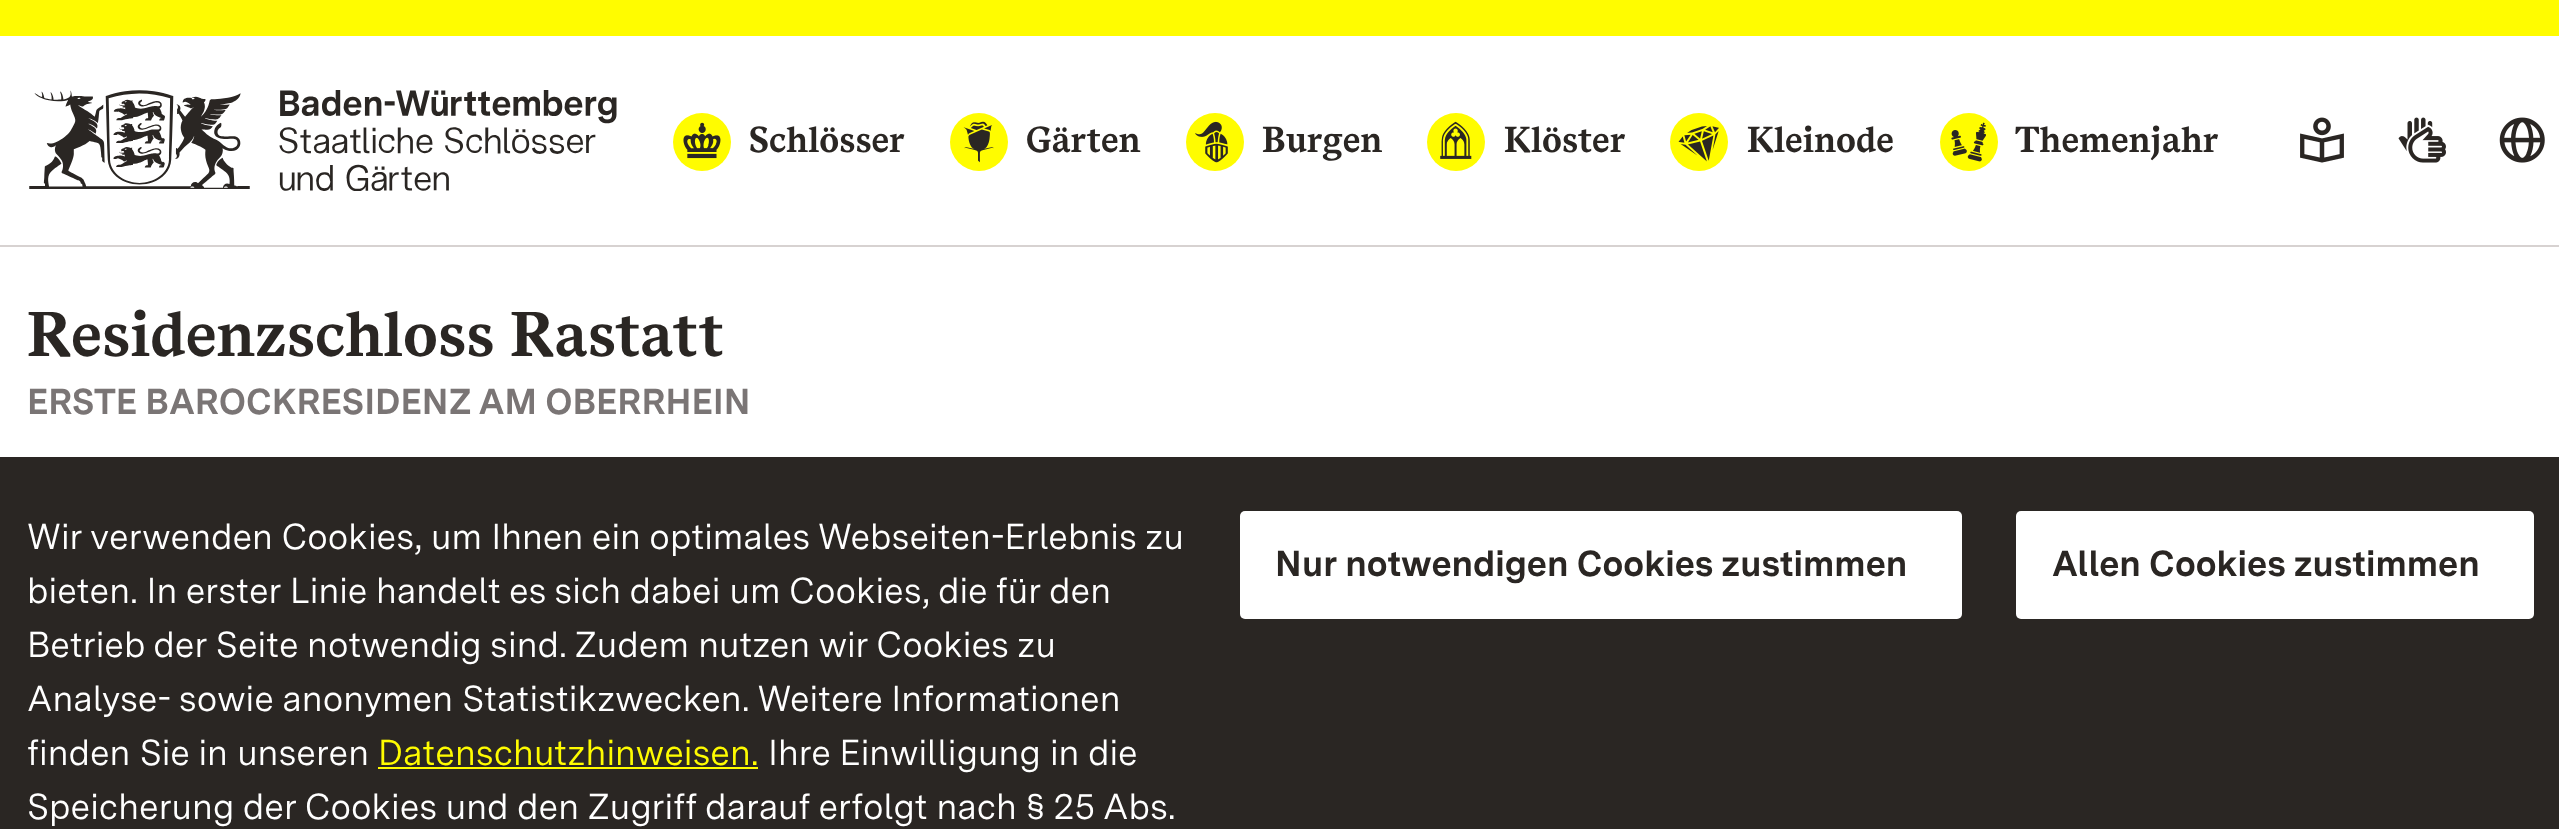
<svg xmlns="http://www.w3.org/2000/svg" width="2559" height="829">
<rect width="100%" height="100%" fill="#fff"/>
<rect width="2559" height="36" fill="#fffc00"/>
<image x="29" y="90" width="588" height="101" href="media/1.png"/>
<circle cx="702" cy="142" r="29" fill="#fffc00"/>
<image x="683" y="122" width="38" height="37" href="media/2.png"/>
<text x="749" y="152" style="font-family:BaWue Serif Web;font-size:36px;font-weight:bold;fill:#2a2623">Schlösser</text>
<circle cx="979" cy="142" r="29" fill="#fffc00"/>
<image x="963" y="121" width="31" height="42" href="media/3.png"/>
<text x="1026" y="152" style="font-family:BaWue Serif Web;font-size:36px;font-weight:bold;fill:#2a2623">Gärten</text>
<circle cx="1215" cy="142" r="29" fill="#fffc00"/>
<image x="1195" y="121" width="33" height="42" href="media/4.png"/>
<text x="1262" y="152" style="font-family:BaWue Serif Web;font-size:36px;font-weight:bold;fill:#2a2623">Burgen</text>
<circle cx="1456" cy="142" r="29" fill="#fffc00"/>
<image x="1440" y="121" width="32" height="38" href="media/5.png"/>
<text x="1504" y="152" style="font-family:BaWue Serif Web;font-size:36px;font-weight:bold;fill:#2a2623">Klöster</text>
<circle cx="1699" cy="142" r="29" fill="#fffc00"/>
<image x="1678" y="126" width="41" height="36" href="media/6.png"/>
<text x="1747" y="152" style="font-family:BaWue Serif Web;font-size:36px;font-weight:bold;fill:#2a2623">Kleinode</text>
<circle cx="1969" cy="142" r="29" fill="#fffc00"/>
<image x="1951" y="122" width="35" height="40" href="media/7.png"/>
<text x="2015" y="152" style="font-family:BaWue Serif Web;font-size:36px;font-weight:bold;fill:#2a2623">Themenjahr</text>
<image x="2300" y="117" width="44" height="46" href="media/8.png"/>
<image x="2398" y="117" width="48" height="46" href="media/9.png"/>
<image x="2499" y="117" width="46" height="46" href="media/10.png"/>
<rect y="245" width="2559" height="2" fill="#d7d2d1"/>
<text x="27" y="356" style="font-family:BaWue Serif Web;font-size:63px;font-weight:bold;fill:#2a2623">Residenzschloss Rastatt</text>
<text x="27" y="414" style="font-family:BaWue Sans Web;font-size:36px;font-weight:bold;fill:#7a7575">ERSTE BAROCKRESIDENZ AM OBERRHEIN</text>
<rect y="457" width="2559" height="372" fill="#2a2623"/>
<text x="27" y="549" style="font-family:BaWue Sans Web;font-size:36px;fill:#fff">Wir verwenden Cookies, um Ihnen ein optimales Webseiten-Erlebnis zu</text>
<text x="27" y="603" style="font-family:BaWue Sans Web;font-size:36px;fill:#fff">bieten. In erster Linie handelt es sich dabei um Cookies, die für den</text>
<text x="27" y="657" style="font-family:BaWue Sans Web;font-size:36px;fill:#fff">Betrieb der Seite notwendig sind. Zudem nutzen wir Cookies zu</text>
<text x="27" y="711" style="font-family:BaWue Sans Web;font-size:36px;fill:#fff">Analyse- sowie anonymen Statistikzwecken. Weitere Informationen</text>
<text x="27" y="765" style="font-family:BaWue Sans Web;font-size:36px;fill:#fff">finden Sie in unseren</text>
<text x="378" y="765" style="font-family:BaWue Sans Web;font-size:36px;fill:#fffc00">Datenschutzhinweisen.</text>
<rect x="378" y="767" width="380" height="2" fill="#fffc00"/>
<text x="768" y="765" style="font-family:BaWue Sans Web;font-size:36px;fill:#fff">Ihre Einwilligung in die</text>
<text x="27" y="819" style="font-family:BaWue Sans Web;font-size:36px;fill:#fff">Speicherung der Cookies und den Zugriff darauf erfolgt nach § 25 Abs.</text>
<rect x="1240" y="511" width="722" height="108" rx="5" fill="#fff"/>
<text x="1275" y="576" style="font-family:BaWue Sans Web;font-size:36px;font-weight:bold;fill:#2a2623">Nur notwendigen Cookies zustimmen</text>
<rect x="2016" y="511" width="518" height="108" rx="5" fill="#fff"/>
<text x="2052" y="576" style="font-family:BaWue Sans Web;font-size:36px;font-weight:bold;fill:#2a2623">Allen Cookies zustimmen</text>
</svg>
